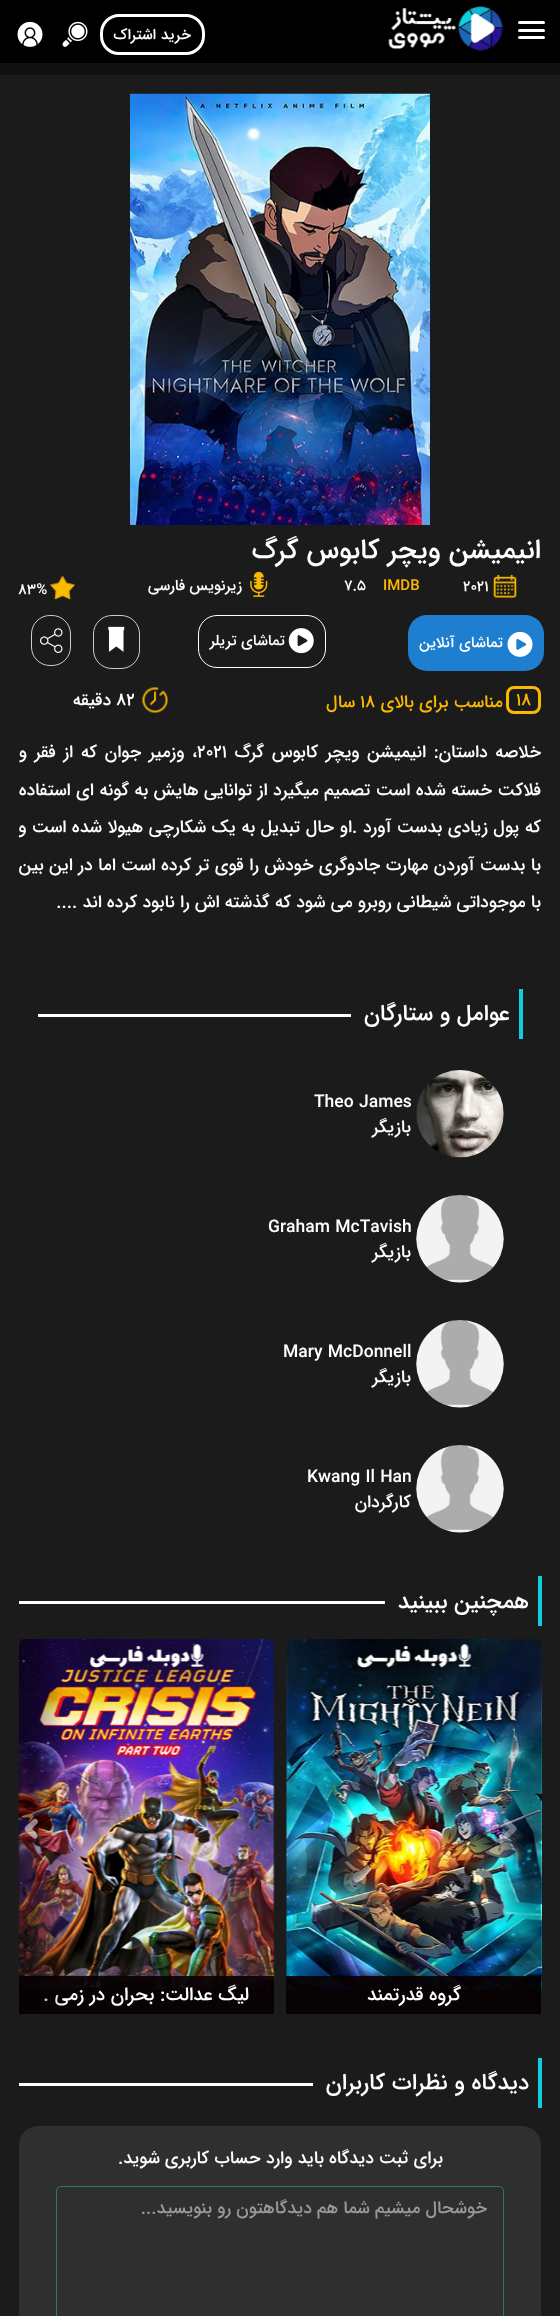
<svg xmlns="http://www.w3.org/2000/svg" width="560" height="2316">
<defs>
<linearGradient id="g1" gradientUnits="userSpaceOnUse" x1="414" y1="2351" x2="414" y2="1976"><stop offset="0.18" stop-color="#0b0104" stop-opacity="0.68"/><stop offset="0.74" stop-color="#090003" stop-opacity="0.78"/></linearGradient>
<linearGradient id="g2" gradientUnits="userSpaceOnUse" x1="498" y1="1826" x2="541" y2="1826"><stop offset="0" stop-color="#000" stop-opacity="0.02"/><stop offset="0.7" stop-color="#000" stop-opacity="0.26"/></linearGradient>
<linearGradient id="g3" gradientUnits="userSpaceOnUse" x1="146" y1="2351" x2="146" y2="1976"><stop offset="0.18" stop-color="#0b0104" stop-opacity="0.68"/><stop offset="0.74" stop-color="#090003" stop-opacity="0.78"/></linearGradient>
<clipPath id="clip1"><rect x="44" y="1984" width="205" height="22"/></clipPath>
<linearGradient id="g4" gradientUnits="userSpaceOnUse" x1="63" y1="1826" x2="19" y2="1826"><stop offset="0" stop-color="#000" stop-opacity="0.03"/><stop offset="0.7" stop-color="#000" stop-opacity="0.38"/></linearGradient>
</defs>
<rect width="100%" height="100%" fill="#101010"/>
<rect width="560" height="63" fill="#000"/>
<rect x="518" y="21" width="27" height="3" rx="1.5" fill="#fff"/>
<rect x="518" y="29" width="27" height="3" rx="1.5" fill="#fff"/>
<rect x="518" y="36" width="27" height="3" rx="1.5" fill="#fff"/>
<image x="388" y="6" width="116" height="45" href="media/1.png"/>
<rect x="101.5" y="15.5" width="102" height="38" rx="17.5" fill="none" stroke="#fff" stroke-width="3"/>
<text x="191" y="39" style="font-family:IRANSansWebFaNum;font-size:15px;font-weight:500;direction:rtl;fill:#fff">خرید اشتراک</text>
<image x="62" y="21" width="26" height="26" href="media/2.png"/>
<image x="17" y="21" width="26" height="26" href="media/3.png"/>
<rect y="75" width="560" height="2241" fill="#1b1b1b"/>
<image x="130" y="93" width="300" height="432" href="media/4.png"/>
<text x="541" y="558" style="font-family:IRANSansWebFaNum;font-size:27.5px;font-weight:500;direction:rtl;fill:#fff">انیمیشن ویچر کابوس گرگ</text>
<image x="493" y="575" width="24" height="23" href="media/5.png"/>
<text x="463" y="591" style="font-family:IRANSansWebFaNum;font-size:15px;font-weight:500;fill:#fff">2021</text>
<text x="383" y="590" style="font-family:IRANSansWebFaNum;font-size:15px;font-weight:500;fill:#fbb800">IMDB</text>
<text x="344" y="590" style="font-family:IRANSansWebFaNum;font-size:15px;font-weight:500;fill:#fff">7.5</text>
<image x="250" y="571" width="18" height="26" href="media/6.png"/>
<text x="242" y="590" style="font-family:IRANSansWebFaNum;font-size:15px;font-weight:500;direction:rtl;fill:#fff">زیرنویس فارسی</text>
<image x="50" y="575" width="25" height="25" href="media/7.png"/>
<text x="18" y="594" style="font-family:IRANSansWebFaNum;font-size:15px;font-weight:500;fill:#fff">83%</text>
<rect x="408" y="615" width="136" height="56" rx="19" fill="#1e7ed0"/>
<image x="507" y="631" width="26" height="26" href="media/8.png"/>
<text x="503" y="647" style="font-family:IRANSansWebFaNum;font-size:15px;font-weight:500;direction:rtl;fill:#fff">تماشای آنلاین</text>
<rect x="198.5" y="615.5" width="127" height="52" rx="18.5" fill="none" stroke="#fff"/>
<image x="288" y="628" width="26" height="26" href="media/9.png"/>
<text x="285" y="645" style="font-family:IRANSansWebFaNum;font-size:15px;font-weight:500;direction:rtl;fill:#fff">تماشای تریلر</text>
<rect x="93.5" y="615.5" width="46" height="53" rx="18.5" fill="none" stroke="#ccc"/>
<image x="108" y="626" width="17" height="26" href="media/10.png"/>
<rect x="31.5" y="615.5" width="39" height="50" rx="18.5" fill="none" stroke="#ccc"/>
<image x="40" y="628" width="23" height="25" href="media/11.png"/>
<rect x="507.5" y="687.5" width="32" height="25" rx="6.5" fill="none" stroke="#fbb800" stroke-width="3"/>
<text x="516" y="705" style="font-family:IRANSansWebFaNum;font-size:17.5px;font-weight:500;fill:#fbb800">18</text>
<text x="503" y="707" style="font-family:IRANSansWebFaNum;font-size:17.5px;font-weight:500;direction:rtl;fill:#fbb800">مناسب برای بالای</text>
<text x="360" y="707" style="font-family:IRANSansWebFaNum;font-size:17.5px;font-weight:500;fill:#fbb800">18</text>
<text x="355" y="707" style="font-family:IRANSansWebFaNum;font-size:17.5px;font-weight:500;direction:rtl;fill:#fbb800">سال</text>
<image x="142" y="687" width="26" height="26" href="media/12.png"/>
<text x="116" y="705" style="font-family:IRANSansWebFaNum;font-size:17.5px;font-weight:500;fill:#fff">82</text>
<text x="111" y="705" style="font-family:IRANSansWebFaNum;font-size:17.5px;font-weight:500;direction:rtl;fill:#fff">دقیقه</text>
<text x="541" y="757" word-spacing="2.5" style="font-family:IRANSansWebFaNum;font-size:17.5px;font-weight:500;direction:rtl;fill:#fff">خلاصه داستان: انیمیشن ویچر کابوس گرگ</text>
<text x="197" y="757" style="font-family:IRANSansWebFaNum;font-size:17.5px;font-weight:500;fill:#fff">2021</text>
<text x="197" y="757" word-spacing="2.5" style="font-family:IRANSansWebFaNum;font-size:17.5px;font-weight:500;direction:rtl;fill:#fff">، وزمیر جوان که از فقر و</text>
<text x="541" y="795" word-spacing="0.3" style="font-family:IRANSansWebFaNum;font-size:17.5px;font-weight:500;direction:rtl;fill:#fff">فلاکت خسته شده است تصمیم میگیرد از توانایی هایش به گونه ای استفاده</text>
<text x="541" y="832" word-spacing="0.4" style="font-family:IRANSansWebFaNum;font-size:17.5px;font-weight:500;direction:rtl;fill:#fff">که پول زیادی بدست آورد .او حال تبدیل به یک شکارچی هیولا شده است و</text>
<text x="541" y="870" word-spacing="0.25" style="font-family:IRANSansWebFaNum;font-size:17.5px;font-weight:500;direction:rtl;fill:#fff">با بدست آوردن مهارت جادوگری خودش را قوی تر کرده است اما در این بین</text>
<text x="541" y="907" style="font-family:IRANSansWebFaNum;font-size:17.5px;font-weight:500;direction:rtl;fill:#fff">با موجوداتی شیطانی روبرو می شود که گذشته اش را نابود کرده اند ....</text>
<rect x="519" y="989" width="4" height="50" fill="#0ecedc"/>
<text x="510" y="1020" style="font-family:IRANSansWebFaNum;font-size:22.5px;font-weight:500;direction:rtl;fill:#fff">عوامل و ستارگان</text>
<rect x="38" y="1014" width="313" height="3" fill="#fff"/>
<image x="416" y="1070" width="88" height="88" href="media/13.png"/>
<text x="314" y="1107" style="font-family:IRANSansWebFaNum;font-size:17.5px;font-weight:500;fill:#fff">Theo James</text>
<text x="411" y="1132" style="font-family:IRANSansWebFaNum;font-size:17.5px;font-weight:500;direction:rtl;fill:#fff">بازیگر</text>
<image x="416" y="1195" width="88" height="88" href="media/14.png"/>
<text x="268" y="1232" style="font-family:IRANSansWebFaNum;font-size:17.5px;font-weight:500;fill:#fff">Graham McTavish</text>
<text x="411" y="1257" style="font-family:IRANSansWebFaNum;font-size:17.5px;font-weight:500;direction:rtl;fill:#fff">بازیگر</text>
<image x="416" y="1320" width="88" height="88" href="media/15.png"/>
<text x="283" y="1357" style="font-family:IRANSansWebFaNum;font-size:17.5px;font-weight:500;fill:#fff">Mary McDonnell</text>
<text x="411" y="1382" style="font-family:IRANSansWebFaNum;font-size:17.5px;font-weight:500;direction:rtl;fill:#fff">بازیگر</text>
<image x="416" y="1445" width="88" height="88" href="media/16.png"/>
<text x="307" y="1482" style="font-family:IRANSansWebFaNum;font-size:17.5px;font-weight:500;fill:#fff">Kwang Il Han</text>
<text x="411" y="1507" style="font-family:IRANSansWebFaNum;font-size:17.5px;font-weight:500;direction:rtl;fill:#fff">کارگردان</text>
<rect x="538" y="1576" width="4" height="50" fill="#0ecedc"/>
<text x="529" y="1608" style="font-family:IRANSansWebFaNum;font-size:22.5px;font-weight:500;direction:rtl;fill:#fff">همچنین ببینید</text>
<rect x="19" y="1601" width="366" height="3" fill="#fff"/>
<image x="286" y="1639" width="256" height="350" href="media/18.png"/>
<rect x="286" y="1976" width="255" height="38" fill="#00000099"/>
<rect x="286" y="1976" width="255" height="38" fill="url(#g1)"/>
<rect x="498" y="1639" width="43" height="375" rx="2.5" fill="url(#g2)"/>
<image x="503" y="1818" width="14" height="21" href="media/17.png"/>
<text x="461" y="2000" style="font-family:IRANSansWebFaNum;font-size:18.75px;font-weight:500;direction:rtl;fill:#fff">گروه قدرتمند</text>
<image x="18" y="1639" width="257" height="350" href="media/19.png"/>
<rect x="19" y="1976" width="255" height="38" fill="#00000099"/>
<rect x="19" y="1976" width="255" height="38" fill="url(#g3)"/>
<g clip-path="url(#clip1)">
<text x="249" y="2000" style="font-family:IRANSansWebFaNum;font-size:18.75px;font-weight:500;direction:rtl;fill:#fff">لیگ عدالت: بحران در زمی ...</text>
</g>
<rect x="19" y="1639" width="44" height="375" rx="2.5" fill="url(#g4)"/>
<image x="24" y="1818" width="14" height="21" href="media/20.png"/>
<rect x="538" y="2058" width="4" height="50" fill="#0ecedc"/>
<text x="529" y="2089" style="font-family:IRANSansWebFaNum;font-size:22.5px;font-weight:500;direction:rtl;fill:#fff">دیدگاه و نظرات کاربران</text>
<rect x="19" y="2083" width="294" height="3" fill="#fff"/>
<rect x="19" y="2126" width="522" height="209" rx="19" fill="#2f2f2f"/>
<text x="443" y="2163" style="font-family:IRANSansWebFaNum;font-size:17.5px;font-weight:500;direction:rtl;fill:#fff">برای ثبت دیدگاه باید وارد حساب کاربری شوید.</text>
<path d="M61 2189h438c2 0 3 1 3 3v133v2c0-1 1-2 1-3v-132c0-2-2-4-4-4h-437c-1 0-3 1-3 2z" fill="#2b2b2b"/>
<rect x="56.5" y="2186.5" width="447" height="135" rx="4.5" fill="none" stroke="#347371"/>
<text x="487" y="2213" style="font-family:IRANSansWebFaNum;font-size:17.5px;font-weight:500;direction:rtl;fill:#999">خوشحال میشیم شما هم دیدگاهتون رو بنویسید...</text>
</svg>
